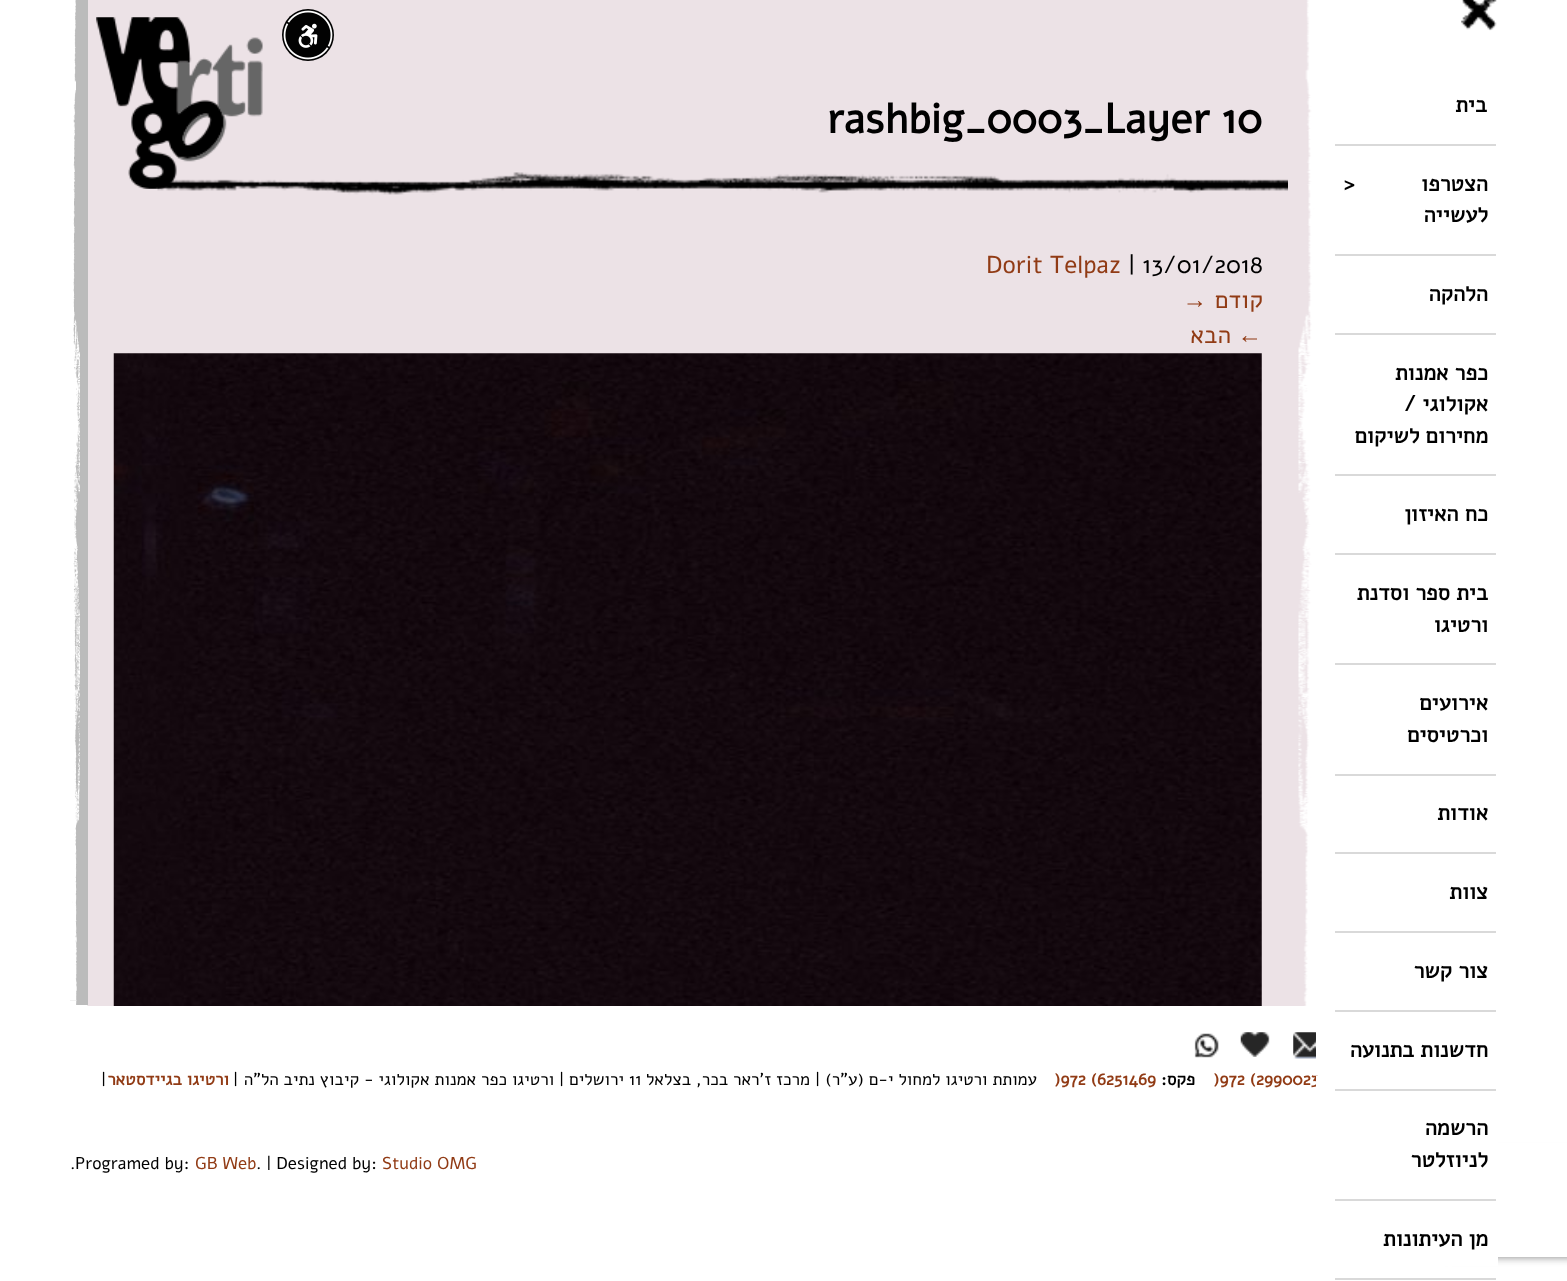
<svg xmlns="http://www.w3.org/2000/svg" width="1567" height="1281">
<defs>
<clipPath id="clip1"><path d="M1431 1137h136v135h-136zm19 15h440c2 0 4 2 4 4v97c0 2-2 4-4 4h-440c-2 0-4-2-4-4v-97c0-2 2-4 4-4z" clip-rule="evenodd"/></clipPath>
</defs>
<rect width="100%" height="100%" fill="#fff"/>
<rect x="70" width="18" height="1006" fill="#bbb"/>
<rect x="88" width="1227" height="1006" fill="#ece2e6"/>
<circle cx="308" cy="35" r="26" fill="#020202"/>
<image x="283" y="10" width="50" height="50" href="media/1.png"/>
<image x="70" y="0" width="18" height="1006" href="media/2.png"/>
<image x="1298" y="0" width="18" height="1006" href="media/3.png"/>
<g clip-path="url(#clip1)">
<rect x="1446" y="1152" width="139" height="105" rx="4" fill="#808080" filter="blur(4.5px)"/>
</g>
<rect x="1437" y="1143" width="130" height="59" fill="#fff"/>
<text x="1213" y="1085" style="font-family:Alef;font-size:17.15px;font-weight:bold;fill:#913b15">)972 (2990023</text>
<rect x="1316" y="1076" width="182" height="190" fill="#fff"/>
<image x="1461" y="0" width="36" height="31" href="media/4.png"/>
<rect x="1335" y="144" width="161" height="2" fill="#d9d9d9"/>
<text x="1487" y="112" style="font-family:Alef;font-size:22px;font-weight:bold;direction:rtl;fill:#000">בית</text>
<rect x="1335" y="254" width="161" height="2" fill="#d9d9d9"/>
<text x="1488" y="191" style="font-family:Alef;font-size:22px;font-weight:bold;direction:rtl;fill:#000">הצטרפו</text>
<text x="1344" y="191" style="font-family:Alef;font-size:22px;font-weight:bold;fill:#000">&gt;</text>
<text x="1488" y="222" style="font-family:Alef;font-size:22px;font-weight:bold;direction:rtl;fill:#000">לעשייה</text>
<rect x="1335" y="333" width="161" height="2" fill="#d9d9d9"/>
<text x="1488" y="301" style="font-family:Alef;font-size:22px;font-weight:bold;direction:rtl;fill:#000">הלהקה</text>
<rect x="1335" y="474" width="161" height="2" fill="#d9d9d9"/>
<text x="1488" y="380" style="font-family:Alef;font-size:22px;font-weight:bold;direction:rtl;fill:#000">כפר אמנות</text>
<text x="1488" y="411" style="font-family:Alef;font-size:22px;font-weight:bold;direction:rtl;fill:#000">אקולוגי /</text>
<text x="1488" y="443" style="font-family:Alef;font-size:22px;font-weight:bold;direction:rtl;fill:#000">מחירום לשיקום</text>
<rect x="1335" y="553" width="161" height="2" fill="#d9d9d9"/>
<text x="1488" y="521" style="font-family:Alef;font-size:22px;font-weight:bold;direction:rtl;fill:#000">כח האיזון</text>
<rect x="1335" y="663" width="161" height="2" fill="#d9d9d9"/>
<text x="1488" y="600" style="font-family:Alef;font-size:22px;font-weight:bold;direction:rtl;fill:#000">בית ספר וסדנת</text>
<text x="1488" y="632" style="font-family:Alef;font-size:22px;font-weight:bold;direction:rtl;fill:#000">ורטיגו</text>
<rect x="1335" y="774" width="161" height="2" fill="#d9d9d9"/>
<text x="1488" y="710" style="font-family:Alef;font-size:22px;font-weight:bold;direction:rtl;fill:#000">אירועים</text>
<text x="1488" y="742" style="font-family:Alef;font-size:22px;font-weight:bold;direction:rtl;fill:#000">וכרטיסים</text>
<rect x="1335" y="852" width="161" height="2" fill="#d9d9d9"/>
<text x="1488" y="820" style="font-family:Alef;font-size:22px;font-weight:bold;direction:rtl;fill:#000">אודות</text>
<rect x="1335" y="931" width="161" height="2" fill="#d9d9d9"/>
<text x="1488" y="899" style="font-family:Alef;font-size:22px;font-weight:bold;direction:rtl;fill:#000">צוות</text>
<rect x="1335" y="1010" width="161" height="2" fill="#d9d9d9"/>
<text x="1488" y="978" style="font-family:Alef;font-size:22px;font-weight:bold;direction:rtl;fill:#000">צור קשר</text>
<rect x="1335" y="1089" width="161" height="2" fill="#d9d9d9"/>
<text x="1488" y="1057" style="font-family:Alef;font-size:22px;font-weight:bold;direction:rtl;fill:#000">חדשנות בתנועה</text>
<rect x="1335" y="1199" width="161" height="2" fill="#d9d9d9"/>
<text x="1488" y="1135" style="font-family:Alef;font-size:22px;font-weight:bold;direction:rtl;fill:#000">הרשמה</text>
<text x="1488" y="1167" style="font-family:Alef;font-size:22px;font-weight:bold;direction:rtl;fill:#000">לניוזלטר</text>
<rect x="1335" y="1278" width="161" height="2" fill="#d9d9d9"/>
<text x="1488" y="1246" style="font-family:Alef;font-size:22px;font-weight:bold;direction:rtl;fill:#000">מן העיתונות</text>
<image x="157" y="172" width="1131" height="23" href="media/5.png"/>
<text x="827" y="133" style="font-family:Alef;font-size:41.6px;font-weight:bold;fill:#000">rashbig_0003_Layer 10</text>
<text x="1128" y="273" style="font-family:Alef;font-size:24.5px;fill:#000">| 13/01/2018</text>
<text x="986" y="273" style="font-family:Alef;font-size:24.5px;fill:#913b15">Dorit Telpaz</text>
<text x="1263" y="308" style="font-family:Alef;font-size:24.5px;direction:rtl;fill:#913b15">קודם</text>
<text x="1207" y="308" style="font-family:Liberation Sans;font-size:24.5px;direction:rtl;fill:#913b15">→</text>
<text x="1262" y="343" style="font-family:Liberation Sans;font-size:24.5px;direction:rtl;fill:#913b15">←</text>
<text x="1231" y="343" style="font-family:Alef;font-size:24.5px;direction:rtl;fill:#913b15">הבא</text>
<image x="113" y="353" width="1149" height="653" href="media/6.png"/>
<image x="96" y="17" width="167" height="172" href="media/7.png"/>
<image x="1293" y="1032" width="23" height="27" href="media/8.png"/>
<image x="1240" y="1032" width="30" height="25" href="media/9.png"/>
<image x="1194" y="1033" width="25" height="25" href="media/10.png"/>
<text x="1195" y="1085" style="font-family:Alef;font-size:17.15px;font-weight:bold;direction:rtl;fill:#000">פקס:</text>
<text x="1054" y="1085" style="font-family:Alef;font-size:17.15px;font-weight:bold;fill:#913b15">)972 (6251469</text>
<text x="1037" y="1085" style="font-family:Alef;font-size:17.15px;direction:rtl;fill:#000">עמותת ורטיגו למחול י-ם (ע"ר)</text>
<text x="815" y="1085" style="font-family:Alef;font-size:17.15px;fill:#000">|</text>
<text x="810" y="1085" style="font-family:Alef;font-size:17.15px;direction:rtl;fill:#000">מרכז ז'ראר בכר, בצלאל</text>
<text x="629" y="1085" style="font-family:Alef;font-size:17.15px;fill:#000">11</text>
<text x="624" y="1085" style="font-family:Alef;font-size:17.15px;direction:rtl;fill:#000">ירושלים | ורטיגו כפר אמנות אקולוגי - קיבוץ נתיב הל"ה</text>
<text x="233" y="1085" style="font-family:Alef;font-size:17.15px;fill:#000">|</text>
<text x="229" y="1085" style="font-family:Alef;font-size:17.15px;font-weight:bold;direction:rtl;fill:#913b15">ורטיגו בגיידסטאר</text>
<text x="101" y="1085" style="font-family:Alef;font-size:17.15px;fill:#000">|</text>
<text x="382" y="1169" style="font-family:Alef;font-size:17.15px;fill:#913b15">Studio OMG</text>
<text x="256" y="1169" style="font-family:Alef;font-size:17.15px;fill:#000">. | Designed by:</text>
<text x="195" y="1169" style="font-family:Alef;font-size:17.15px;fill:#913b15">GB Web</text>
<text x="75" y="1169" style="font-family:Alef;font-size:17.15px;fill:#000">Programed by:</text>
<text x="70" y="1169" style="font-family:Alef;font-size:17.15px;fill:#000">.</text>
</svg>
